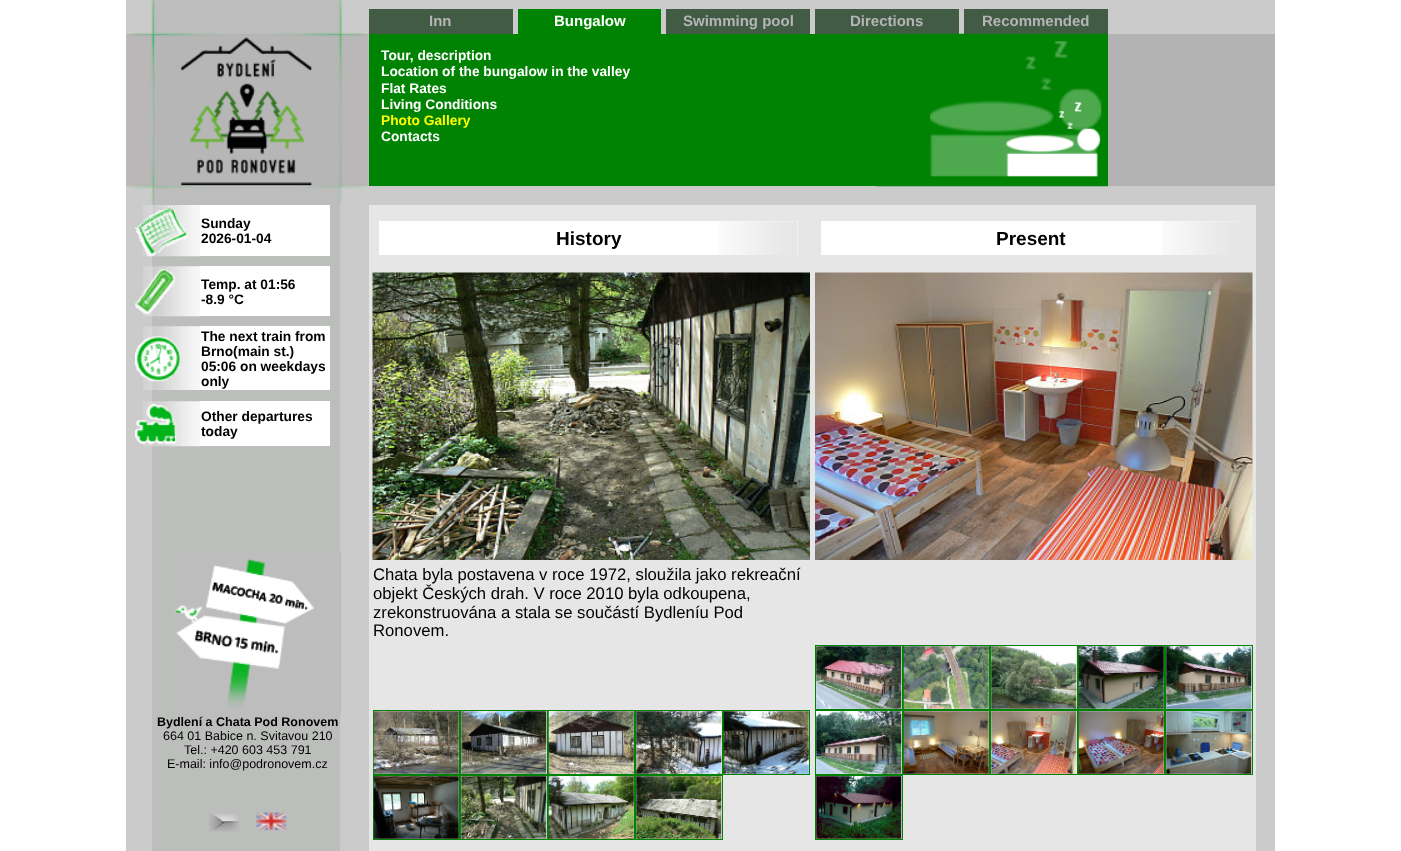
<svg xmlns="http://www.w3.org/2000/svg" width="1401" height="851">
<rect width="100%" height="100%" fill="#fff"/>
<rect x="126" width="1149" height="851" fill="#cbcbcb"/>
<image x="133" y="0" width="20" height="34" href="media/1.png"/>
<image x="152" y="0" width="188" height="34" href="media/2.png"/>
<image x="340" y="0" width="22" height="34" href="media/3.png"/>
<rect x="369" y="9" width="144" height="25" fill="#425b45"/>
<text x="429" y="26" style="font-family:Liberation Sans;font-size:15px;font-weight:bold;fill:#b5b5b5">Inn</text>
<rect x="518" y="9" width="143" height="25" fill="#008302"/>
<text x="554" y="26" style="font-family:Liberation Sans;font-size:15px;font-weight:bold;fill:#fff">Bungalow</text>
<rect x="666" y="9" width="144" height="25" fill="#425b45"/>
<text x="683" y="26" style="font-family:Liberation Sans;font-size:15px;font-weight:bold;fill:#b5b5b5">Swimming pool</text>
<rect x="815" y="9" width="144" height="25" fill="#425b45"/>
<text x="850" y="26" style="font-family:Liberation Sans;font-size:15px;font-weight:bold;fill:#b5b5b5">Directions</text>
<rect x="964" y="9" width="144" height="25" fill="#425b45"/>
<text x="982" y="26" style="font-family:Liberation Sans;font-size:15px;font-weight:bold;fill:#b5b5b5">Recommended</text>
<image x="126" y="33" width="27" height="154" href="media/4.png"/>
<image x="152" y="33" width="188" height="154" href="media/5.png"/>
<image x="340" y="33" width="29" height="154" href="media/6.png"/>
<rect x="1108" y="34" width="167" height="152" fill="#b3b3b3"/>
<rect x="369" y="34" width="739" height="152" fill="#008302"/>
<text x="381" y="60" style="font-family:Liberation Sans;font-size:13.75px;font-weight:bold;fill:#fff">Tour, description</text>
<text x="381" y="76" style="font-family:Liberation Sans;font-size:13.75px;font-weight:bold;fill:#fff">Location of the bungalow in the valley</text>
<text x="381" y="93" style="font-family:Liberation Sans;font-size:13.75px;font-weight:bold;fill:#fff">Flat Rates</text>
<text x="381" y="109" style="font-family:Liberation Sans;font-size:13.75px;font-weight:bold;fill:#fff">Living Conditions</text>
<text x="381" y="125" style="font-family:Liberation Sans;font-size:13.75px;font-weight:bold;fill:#ff0">Photo Gallery</text>
<text x="381" y="141" style="font-family:Liberation Sans;font-size:13.75px;font-weight:bold;fill:#fff">Contacts</text>
<image x="876" y="33" width="232" height="154" href="media/7.png"/>
<image x="129" y="186" width="24" height="19" href="media/8.png"/>
<image x="152" y="186" width="188" height="19" href="media/9.png"/>
<image x="340" y="186" width="26" height="19" href="media/10.png"/>
<rect x="152" y="205" width="188" height="646" fill="#bcbebc"/>
<image x="143" y="205" width="57" height="52" href="media/11.png"/>
<image x="135" y="206" width="53" height="51" href="media/12.png"/>
<rect x="200" y="205" width="130" height="51" fill="#fff"/>
<text x="201" y="228" style="font-family:Liberation Sans;font-size:13.75px;font-weight:bold;fill:#000">Sunday</text>
<text x="201" y="243" style="font-family:Liberation Sans;font-size:13.75px;font-weight:bold;fill:#000">2026-01-04</text>
<image x="143" y="266" width="57" height="51" href="media/13.png"/>
<image x="135" y="267" width="40" height="48" href="media/14.png"/>
<rect x="200" y="266" width="130" height="50" fill="#fff"/>
<text x="201" y="289" style="font-family:Liberation Sans;font-size:13.75px;font-weight:bold;fill:#000">Temp. at 01:56</text>
<text x="201" y="304" style="font-family:Liberation Sans;font-size:13.75px;font-weight:bold;fill:#000">-8.9 °C</text>
<image x="143" y="326" width="57" height="64" href="media/15.png"/>
<image x="135" y="336" width="45" height="46" href="media/16.png"/>
<rect x="200" y="326" width="130" height="64" fill="#fff"/>
<text x="201" y="341" style="font-family:Liberation Sans;font-size:13.75px;font-weight:bold;fill:#000">The next train from</text>
<text x="201" y="356" style="font-family:Liberation Sans;font-size:13.75px;font-weight:bold;fill:#000">Brno(main st.)</text>
<text x="201" y="371" style="font-family:Liberation Sans;font-size:13.75px;font-weight:bold;fill:#000">05:06 on weekdays</text>
<text x="201" y="386" style="font-family:Liberation Sans;font-size:13.75px;font-weight:bold;fill:#000">only</text>
<image x="143" y="401" width="57" height="46" href="media/17.png"/>
<image x="135" y="403" width="42" height="41" href="media/18.png"/>
<rect x="200" y="401" width="130" height="45" fill="#fff"/>
<text x="201" y="421" style="font-family:Liberation Sans;font-size:13.75px;font-weight:bold;fill:#000">Other departures</text>
<text x="201" y="436" style="font-family:Liberation Sans;font-size:13.75px;font-weight:bold;fill:#000">today</text>
<image x="175" y="551" width="167" height="164" href="media/19.png"/>
<text x="157" y="726" style="font-family:Liberation Sans;font-size:12.5px;font-weight:bold;fill:#000">Bydlení a Chata Pod Ronovem</text>
<text x="163" y="740" style="font-family:Liberation Sans;font-size:12.5px;fill:#000">664 01 Babice n. Svitavou 210</text>
<text x="184" y="754" style="font-family:Liberation Sans;font-size:12.5px;fill:#000">Tel.: +420 603 453 791</text>
<text x="167" y="768" style="font-family:Liberation Sans;font-size:12.5px;fill:#000">E-mail: info@podronovem.cz</text>
<image x="209" y="814" width="30" height="18" href="media/20.png"/>
<image x="256" y="812" width="31" height="19" href="media/21.png"/>
<rect x="369" y="205" width="887" height="646" fill="#e6e6e6"/>
<rect x="379" y="221" width="419" height="34" fill="#fff"/>
<image x="719" y="221" width="79" height="34" href="media/22.png"/>
<text x="556" y="245" style="font-family:Liberation Sans;font-size:19px;font-weight:bold;fill:#000">History</text>
<rect x="821" y="221" width="419" height="34" fill="#fff"/>
<image x="1162" y="221" width="78" height="34" href="media/23.png"/>
<text x="996" y="245" style="font-family:Liberation Sans;font-size:19px;font-weight:bold;fill:#000">Present</text>
<image x="372" y="272" width="438" height="288" href="media/24.png"/>
<image x="815" y="272" width="438" height="288" href="media/25.png"/>
<text x="373" y="580" style="font-family:Liberation Sans;font-size:16.7px;fill:#000">Chata byla postavena v roce 1972, sloužila jako rekreační</text>
<text x="373" y="599" style="font-family:Liberation Sans;font-size:16.7px;fill:#000">objekt Českých drah. V roce 2010 byla odkoupena,</text>
<text x="373" y="618" style="font-family:Liberation Sans;font-size:16.7px;fill:#000">zrekonstruována a stala se součástí Bydleníu Pod</text>
<text x="373" y="636" style="font-family:Liberation Sans;font-size:16.7px;fill:#000">Ronovem.</text>
<rect x="373.5" y="710.5" width="86" height="64" fill="none" stroke="#008302"/>
<rect x="460.5" y="710.5" width="87" height="64" fill="none" stroke="#008302"/>
<rect x="548.5" y="710.5" width="86" height="64" fill="none" stroke="#008302"/>
<rect x="635.5" y="710.5" width="87" height="64" fill="none" stroke="#008302"/>
<rect x="723.5" y="710.5" width="86" height="64" fill="none" stroke="#008302"/>
<image x="373" y="711" width="86" height="63" href="media/26.png"/>
<image x="461" y="711" width="86" height="63" href="media/27.png"/>
<image x="548" y="711" width="86" height="63" href="media/28.png"/>
<image x="636" y="711" width="86" height="63" href="media/29.png"/>
<image x="723" y="711" width="86" height="63" href="media/30.png"/>
<rect x="373.5" y="775.5" width="86" height="64" fill="none" stroke="#008302"/>
<rect x="460.5" y="775.5" width="87" height="64" fill="none" stroke="#008302"/>
<rect x="548.5" y="775.5" width="86" height="64" fill="none" stroke="#008302"/>
<rect x="635.5" y="775.5" width="87" height="64" fill="none" stroke="#008302"/>
<image x="373" y="776" width="86" height="63" href="media/31.png"/>
<image x="461" y="776" width="86" height="63" href="media/32.png"/>
<image x="548" y="776" width="86" height="63" href="media/33.png"/>
<image x="636" y="776" width="86" height="63" href="media/34.png"/>
<rect x="815.5" y="645.5" width="87" height="64" fill="none" stroke="#008302"/>
<rect x="903.5" y="645.5" width="86" height="64" fill="none" stroke="#008302"/>
<rect x="990.5" y="645.5" width="87" height="64" fill="none" stroke="#008302"/>
<rect x="1078.5" y="645.5" width="86" height="64" fill="none" stroke="#008302"/>
<rect x="1165.5" y="645.5" width="87" height="64" fill="none" stroke="#008302"/>
<image x="816" y="646" width="86" height="63" href="media/35.png"/>
<image x="903" y="646" width="86" height="63" href="media/36.png"/>
<image x="991" y="646" width="86" height="63" href="media/37.png"/>
<image x="1078" y="646" width="86" height="63" href="media/38.png"/>
<image x="1166" y="646" width="86" height="63" href="media/39.png"/>
<rect x="815.5" y="710.5" width="87" height="64" fill="none" stroke="#008302"/>
<rect x="903.5" y="710.5" width="86" height="64" fill="none" stroke="#008302"/>
<rect x="990.5" y="710.5" width="87" height="64" fill="none" stroke="#008302"/>
<rect x="1078.5" y="710.5" width="86" height="64" fill="none" stroke="#008302"/>
<rect x="1165.5" y="710.5" width="87" height="64" fill="none" stroke="#008302"/>
<image x="816" y="711" width="86" height="63" href="media/40.png"/>
<image x="903" y="711" width="86" height="63" href="media/41.png"/>
<image x="991" y="711" width="86" height="63" href="media/42.png"/>
<image x="1078" y="711" width="86" height="63" href="media/43.png"/>
<image x="1166" y="711" width="86" height="63" href="media/44.png"/>
<rect x="815.5" y="775.5" width="87" height="64" fill="none" stroke="#008302"/>
<image x="816" y="776" width="86" height="63" href="media/45.png"/>
</svg>
